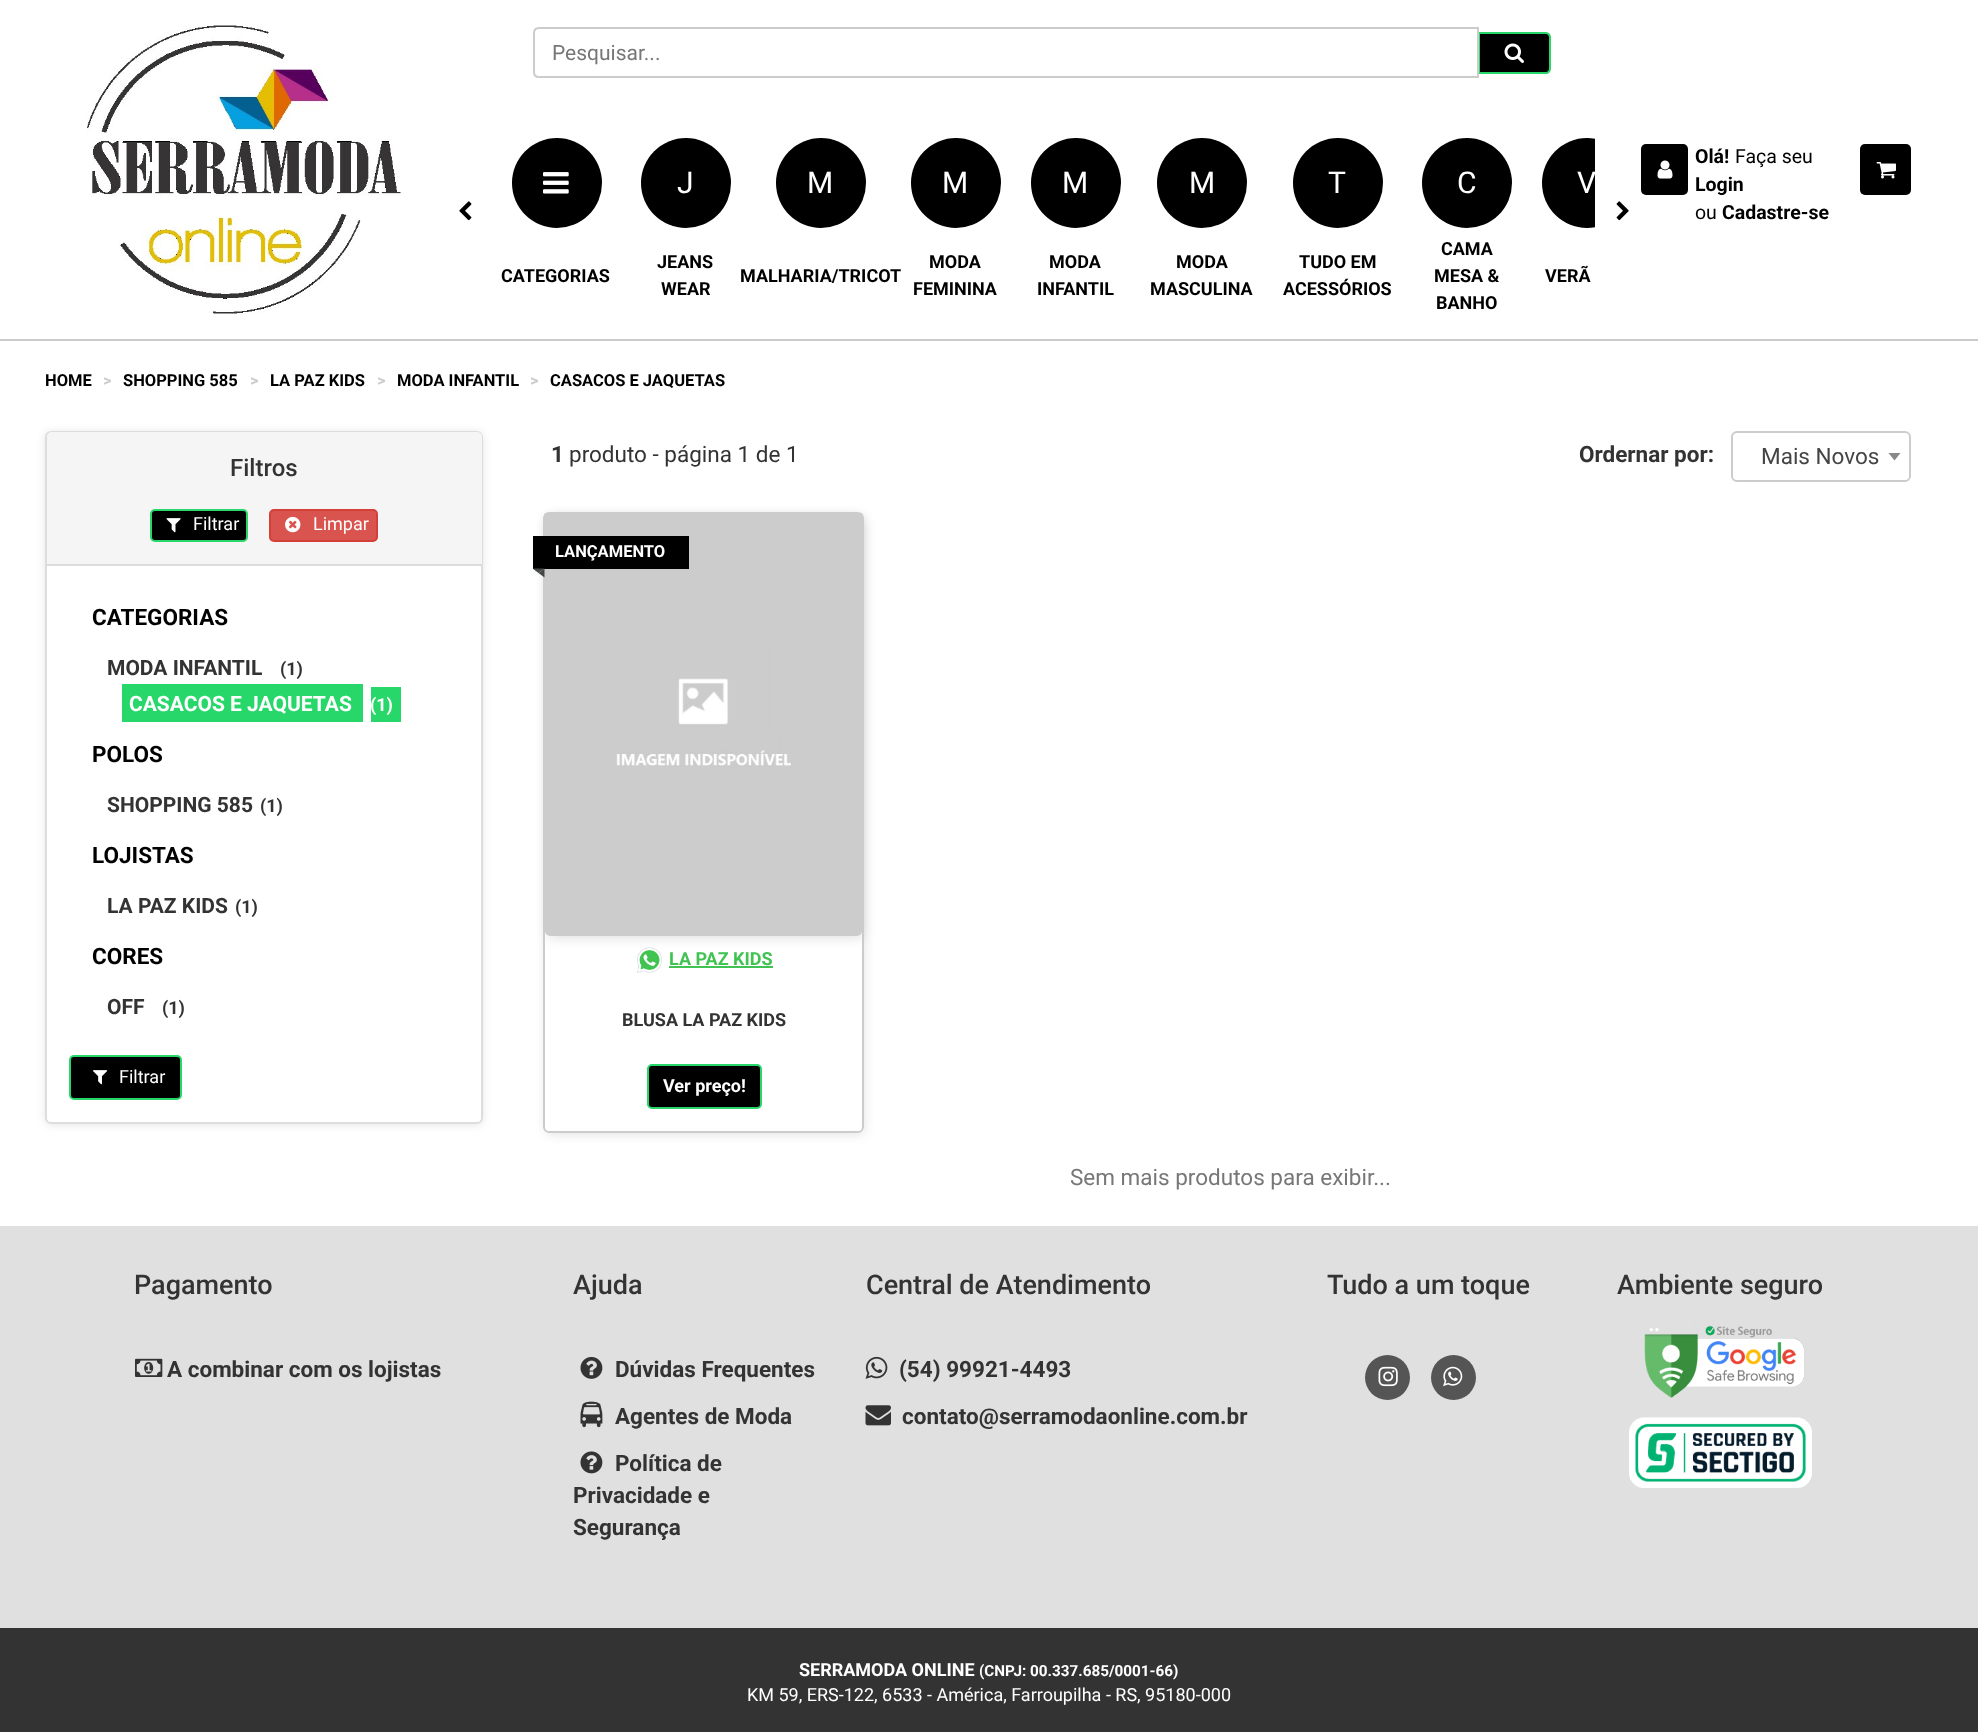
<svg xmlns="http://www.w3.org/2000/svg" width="1978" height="1732">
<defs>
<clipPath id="clip1"><rect x="486" y="131" width="1109" height="199"/></clipPath>
<clipPath id="clip2"><path d="M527 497h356v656h-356zm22 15h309c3.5 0 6 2.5 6 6v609c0 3.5-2.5 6-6 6h-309c-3.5 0-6-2.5-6-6v-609c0-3.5 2.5-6 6-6z" clip-rule="evenodd"/></clipPath>
</defs>
<rect width="100%" height="100%" fill="#fff"/>
<rect y="339" width="1978" height="2" fill="#ccc"/>
<image x="87" y="25" width="314" height="289" href="media/1.png"/>
<path d="M1479 33h67c2 0 4 2 4 4v32c0 2-2 4-4 4h-67z" fill="#000" stroke="#27d76a" stroke-width="2"/>
<path d="M539 28h939v49h-939c-3 0-5-2-5-5v-39c0-3 2-5 5-5z" fill="#fff" stroke="#ccc" stroke-width="2"/>
<text x="552" y="60" style="font-family:Roboto;font-size:21px;fill:#777">Pesquisar...</text>
<image x="1504" y="43" width="20" height="20" href="media/2.png"/>
<image x="459" y="201" width="13" height="20" href="media/3.png"/>
<circle cx="557" cy="183" r="45" fill="#000"/>
<image x="543" y="172" width="26" height="22" href="media/4.png"/>
<text x="501" y="282" style="font-family:Roboto;font-size:18px;font-weight:bold;fill:#000">CATEGORIAS</text>
<circle cx="686" cy="183" r="45" fill="#000"/>
<text x="677" y="193" style="font-family:Roboto;font-size:30px;fill:#fff">J</text>
<text x="657" y="268" style="font-family:Roboto;font-size:18px;font-weight:bold;fill:#000">JEANS</text>
<text x="661" y="295" style="font-family:Roboto;font-size:18px;font-weight:bold;fill:#000">WEAR</text>
<circle cx="821" cy="183" r="45" fill="#000"/>
<text x="807" y="193" style="font-family:Roboto;font-size:30px;fill:#fff">M</text>
<text x="740" y="282" style="font-family:Roboto;font-size:18px;font-weight:bold;fill:#000">MALHARIA/TRICOT</text>
<circle cx="956" cy="183" r="45" fill="#000"/>
<text x="942" y="193" style="font-family:Roboto;font-size:30px;fill:#fff">M</text>
<text x="929" y="268" style="font-family:Roboto;font-size:18px;font-weight:bold;fill:#000">MODA</text>
<text x="913" y="295" style="font-family:Roboto;font-size:18px;font-weight:bold;fill:#000">FEMININA</text>
<circle cx="1076" cy="183" r="45" fill="#000"/>
<text x="1062" y="193" style="font-family:Roboto;font-size:30px;fill:#fff">M</text>
<text x="1049" y="268" style="font-family:Roboto;font-size:18px;font-weight:bold;fill:#000">MODA</text>
<text x="1037" y="295" style="font-family:Roboto;font-size:18px;font-weight:bold;fill:#000">INFANTIL</text>
<circle cx="1202" cy="183" r="45" fill="#000"/>
<text x="1189" y="193" style="font-family:Roboto;font-size:30px;fill:#fff">M</text>
<text x="1176" y="268" style="font-family:Roboto;font-size:18px;font-weight:bold;fill:#000">MODA</text>
<text x="1150" y="295" style="font-family:Roboto;font-size:18px;font-weight:bold;fill:#000">MASCULINA</text>
<circle cx="1338" cy="183" r="45" fill="#000"/>
<text x="1328" y="193" style="font-family:Roboto;font-size:30px;fill:#fff">T</text>
<text x="1299" y="268" style="font-family:Roboto;font-size:18px;font-weight:bold;fill:#000">TUDO EM</text>
<text x="1283" y="295" style="font-family:Roboto;font-size:18px;font-weight:bold;fill:#000">ACESSÓRIOS</text>
<circle cx="1467" cy="183" r="45" fill="#000"/>
<text x="1457" y="193" style="font-family:Roboto;font-size:30px;fill:#fff">C</text>
<text x="1441" y="255" style="font-family:Roboto;font-size:18px;font-weight:bold;fill:#000">CAMA</text>
<text x="1434" y="282" style="font-family:Roboto;font-size:18px;font-weight:bold;fill:#000">MESA &amp;</text>
<text x="1436" y="309" style="font-family:Roboto;font-size:18px;font-weight:bold;fill:#000">BANHO</text>
<image x="1616" y="201" width="13" height="20" href="media/5.png"/>
<g clip-path="url(#clip1)">
<circle cx="1587" cy="183" r="45" fill="#000"/>
<text x="1577" y="193" style="font-family:Roboto;font-size:30px;fill:#fff">V</text>
</g>
<text x="1545" y="282" style="font-family:Roboto;font-size:18px;font-weight:bold;fill:#000">VERÃ</text>
<rect x="1641" y="144" width="47" height="51" rx="5" fill="#000"/>
<image x="1657" y="160" width="16" height="19" href="media/6.png"/>
<text x="1695" y="163" style="font-family:Roboto;font-size:19.5px;font-weight:bold;fill:#000">Olá!</text>
<text x="1735" y="163" style="font-family:Roboto;font-size:19.5px;fill:#000">Faça seu</text>
<text x="1695" y="191" style="font-family:Roboto;font-size:19.5px;font-weight:bold;fill:#000">Login</text>
<text x="1695" y="219" style="font-family:Roboto;font-size:19.5px;fill:#000">ou</text>
<text x="1722" y="219" style="font-family:Roboto;font-size:19.5px;font-weight:bold;fill:#000">Cadastre-se</text>
<rect x="1860" y="144" width="51" height="51" rx="5" fill="#000"/>
<image x="1876" y="162" width="20" height="17" href="media/7.png"/>
<text x="45" y="386" style="font-family:Roboto;font-size:16.5px;font-weight:bold;fill:#000">HOME</text>
<text x="103" y="386" style="font-family:Roboto;font-size:16.5px;font-weight:bold;fill:#ccc">&gt;</text>
<text x="123" y="386" style="font-family:Roboto;font-size:16.5px;font-weight:bold;fill:#000">SHOPPING 585</text>
<text x="250" y="386" style="font-family:Roboto;font-size:16.5px;font-weight:bold;fill:#ccc">&gt;</text>
<text x="270" y="386" style="font-family:Roboto;font-size:16.5px;font-weight:bold;fill:#000">LA PAZ KIDS</text>
<text x="377" y="386" style="font-family:Roboto;font-size:16.5px;font-weight:bold;fill:#ccc">&gt;</text>
<text x="397" y="386" style="font-family:Roboto;font-size:16.5px;font-weight:bold;fill:#000">MODA INFANTIL</text>
<text x="530" y="386" style="font-family:Roboto;font-size:16.5px;font-weight:bold;fill:#ccc">&gt;</text>
<text x="550" y="386" style="font-family:Roboto;font-size:16.5px;font-weight:bold;fill:#000">CASACOS E JAQUETAS</text>
<rect x="45" y="432" width="438" height="693" rx="6" fill="#0000001a" filter="blur(4px)"/>
<rect x="46" y="432" width="436" height="691" rx="5" fill="#fff" stroke="#ddd" stroke-width="2"/>
<path d="M52 432h425c3 0 5 2 5 5v129h-435v-129c0-3 2-5 5-5z" fill="#f5f5f5"/>
<rect x="47" y="564" width="435" height="2" fill="#ddd"/>
<text x="230" y="476" style="font-family:Roboto;font-size:24px;font-weight:500;fill:#333">Filtros</text>
<rect x="151" y="510" width="96" height="31" rx="4" fill="#000" stroke="#27d76a" stroke-width="2"/>
<image x="166" y="518" width="15" height="15" href="media/8.png"/>
<text x="193" y="530" style="font-family:Roboto;font-size:18px;fill:#fff">Filtrar</text>
<rect x="270" y="510" width="107" height="31" rx="4" fill="#d9534f" stroke="#d43f3a" stroke-width="2"/>
<image x="285" y="516" width="16" height="17" href="media/9.png"/>
<text x="313" y="530" style="font-family:Roboto;font-size:18px;fill:#fff">Limpar</text>
<text x="92" y="625" style="font-family:Roboto;font-size:22.5px;font-weight:bold;fill:#000">CATEGORIAS</text>
<text x="107" y="675" style="font-family:Roboto;font-size:21px;font-weight:bold;fill:#333">MODA INFANTIL</text>
<text x="280" y="675" style="font-family:Roboto;font-size:18px;font-weight:bold;fill:#333">(1)</text>
<rect x="122" y="684" width="241" height="38" fill="#27d76a"/>
<text x="129" y="711" style="font-family:Roboto;font-size:21px;font-weight:bold;fill:#fff">CASACOS E JAQUETAS</text>
<rect x="371" y="687" width="30" height="35" fill="#27d76a"/>
<text x="370" y="711" style="font-family:Roboto;font-size:18px;font-weight:bold;fill:#fff">(1)</text>
<text x="92" y="762" style="font-family:Roboto;font-size:22.5px;font-weight:bold;fill:#000">POLOS</text>
<text x="107" y="812" style="font-family:Roboto;font-size:21px;font-weight:bold;fill:#333">SHOPPING 585</text>
<text x="260" y="812" style="font-family:Roboto;font-size:18px;font-weight:bold;fill:#333">(1)</text>
<text x="92" y="863" style="font-family:Roboto;font-size:22.5px;font-weight:bold;fill:#000">LOJISTAS</text>
<text x="107" y="913" style="font-family:Roboto;font-size:21px;font-weight:bold;fill:#333">LA PAZ KIDS</text>
<text x="235" y="913" style="font-family:Roboto;font-size:18px;font-weight:bold;fill:#333">(1)</text>
<text x="92" y="964" style="font-family:Roboto;font-size:22.5px;font-weight:bold;fill:#000">CORES</text>
<text x="107" y="1014" style="font-family:Roboto;font-size:21px;font-weight:bold;fill:#333">OFF</text>
<text x="162" y="1014" style="font-family:Roboto;font-size:18px;font-weight:bold;fill:#333">(1)</text>
<rect x="70" y="1056" width="111" height="43" rx="4" fill="#000" stroke="#27d76a" stroke-width="2"/>
<image x="93" y="1070" width="15" height="15" href="media/10.png"/>
<text x="119" y="1083" style="font-family:Roboto;font-size:18px;fill:#fff">Filtrar</text>
<text x="551" y="462" style="font-family:Roboto;font-size:22.5px;font-weight:bold;fill:#333">1</text>
<text x="569" y="462" style="font-family:Roboto;font-size:22.5px;fill:#333">produto - página 1 de 1</text>
<text x="1579" y="462" style="font-family:Roboto;font-size:22.5px;font-weight:bold;fill:#333">Ordernar por:</text>
<rect x="1732" y="432" width="178" height="49" rx="5" fill="none" stroke="#ccc" stroke-width="2"/>
<text x="1761" y="464" style="font-family:Roboto;font-size:22.5px;fill:#444">Mais Novos</text>
<path d="M1888.5 453h12l-6 7.5z" fill="#888"/>
<g clip-path="url(#clip2)">
<rect x="546" y="516" width="318" height="618" rx="5" fill="#0000001f" filter="blur(6px)"/>
</g>
<rect x="548" y="518" width="315" height="420" rx="5" fill="#0000001f" filter="blur(6px)"/>
<rect x="544" y="513" width="319" height="619" rx="5" fill="none" stroke="#ccc" stroke-width="2"/>
<image x="544" y="513" width="319" height="423" href="media/11.png"/>
<rect x="533" y="536" width="156" height="33" fill="#000"/>
<text x="555" y="557" style="font-family:Roboto;font-size:16.5px;font-weight:bold;fill:#fff">LANÇAMENTO</text>
<path d="M532.5 568.5h12l-6 4.5z" fill="#444646"/>
<path d="M544.5 568.5v9l-6-4.5z" fill="#444646"/>
<image x="637" y="947" width="25" height="26" href="media/12.png"/>
<text x="669" y="965" style="font-family:Roboto;font-size:18px;font-weight:bold;fill:#40c351">LA PAZ KIDS</text>
<rect x="669" y="966" width="104" height="2" fill="#40c351"/>
<text x="622" y="1026" style="font-family:Roboto;font-size:18px;font-weight:bold;fill:#333">BLUSA LA PAZ KIDS</text>
<rect x="648" y="1065" width="113" height="43" rx="4" fill="#000" stroke="#27d76a" stroke-width="2"/>
<text x="663" y="1092" style="font-family:Roboto;font-size:18px;font-weight:bold;fill:#fff">Ver preço!</text>
<text x="1070" y="1185" style="font-family:Roboto;font-size:22.5px;fill:#777">Sem mais produtos para exibir...</text>
<rect y="1226" width="1978" height="402" fill="#e0e0e0"/>
<text x="134" y="1294" style="font-family:Roboto;font-size:27px;font-weight:500;fill:#333">Pagamento</text>
<image x="135" y="1358" width="28" height="19" href="media/13.png"/>
<text x="167" y="1377" style="font-family:Roboto;font-size:22.5px;font-weight:bold;fill:#333">A combinar com os lojistas</text>
<text x="573" y="1294" style="font-family:Roboto;font-size:27px;font-weight:500;fill:#333">Ajuda</text>
<image x="580" y="1357" width="23" height="22" href="media/14.png"/>
<text x="615" y="1377" style="font-family:Roboto;font-size:22.5px;font-weight:bold;fill:#333">Dúvidas Frequentes</text>
<image x="580" y="1401" width="23" height="27" href="media/15.png"/>
<text x="615" y="1424" style="font-family:Roboto;font-size:22.5px;font-weight:bold;fill:#333">Agentes de Moda</text>
<image x="580" y="1451" width="23" height="23" href="media/16.png"/>
<text x="615" y="1471" style="font-family:Roboto;font-size:22.5px;font-weight:bold;fill:#333">Política de</text>
<text x="573" y="1503" style="font-family:Roboto;font-size:22.5px;font-weight:bold;fill:#333">Privacidade e</text>
<text x="573" y="1535" style="font-family:Roboto;font-size:22.5px;font-weight:bold;fill:#333">Segurança</text>
<text x="866" y="1294" style="font-family:Roboto;font-size:27px;font-weight:500;fill:#333">Central de Atendimento</text>
<image x="865" y="1356" width="23" height="23" href="media/17.png"/>
<text x="899" y="1377" style="font-family:Roboto;font-size:22.5px;font-weight:bold;fill:#333">(54) 99921-4493</text>
<image x="865" y="1405" width="26" height="21" href="media/18.png"/>
<text x="902" y="1424" style="font-family:Roboto;font-size:22.5px;font-weight:bold;fill:#333">contato@serramodaonline.com.br</text>
<text x="1327" y="1294" style="font-family:Roboto;font-size:27px;font-weight:500;fill:#333">Tudo a um toque</text>
<circle cx="1387.5" cy="1377.5" r="22.5" fill="#555"/>
<image x="1378" y="1366" width="20" height="21" href="media/19.png"/>
<circle cx="1453.5" cy="1377.5" r="22.5" fill="#555"/>
<image x="1443" y="1366" width="20" height="21" href="media/20.png"/>
<text x="1617" y="1294" style="font-family:Roboto;font-size:27px;font-weight:500;fill:#333">Ambiente seguro</text>
<image x="1644" y="1324" width="161" height="74" href="media/21.png"/>
<image x="1629" y="1417" width="183" height="71" href="media/22.png"/>
<rect y="1628" width="1978" height="104" fill="#333"/>
<text x="799" y="1676" style="font-family:Roboto;font-size:18px;font-weight:bold;fill:#fff">SERRAMODA ONLINE</text>
<text x="979" y="1676" style="font-family:Roboto;font-size:15.25px;font-weight:bold;fill:#fff">(CNPJ: 00.337.685/0001-66)</text>
<text x="747" y="1701" style="font-family:Roboto;font-size:18px;fill:#fff">KM 59, ERS-122, 6533 - América, Farroupilha - RS, 95180-000</text>
</svg>
